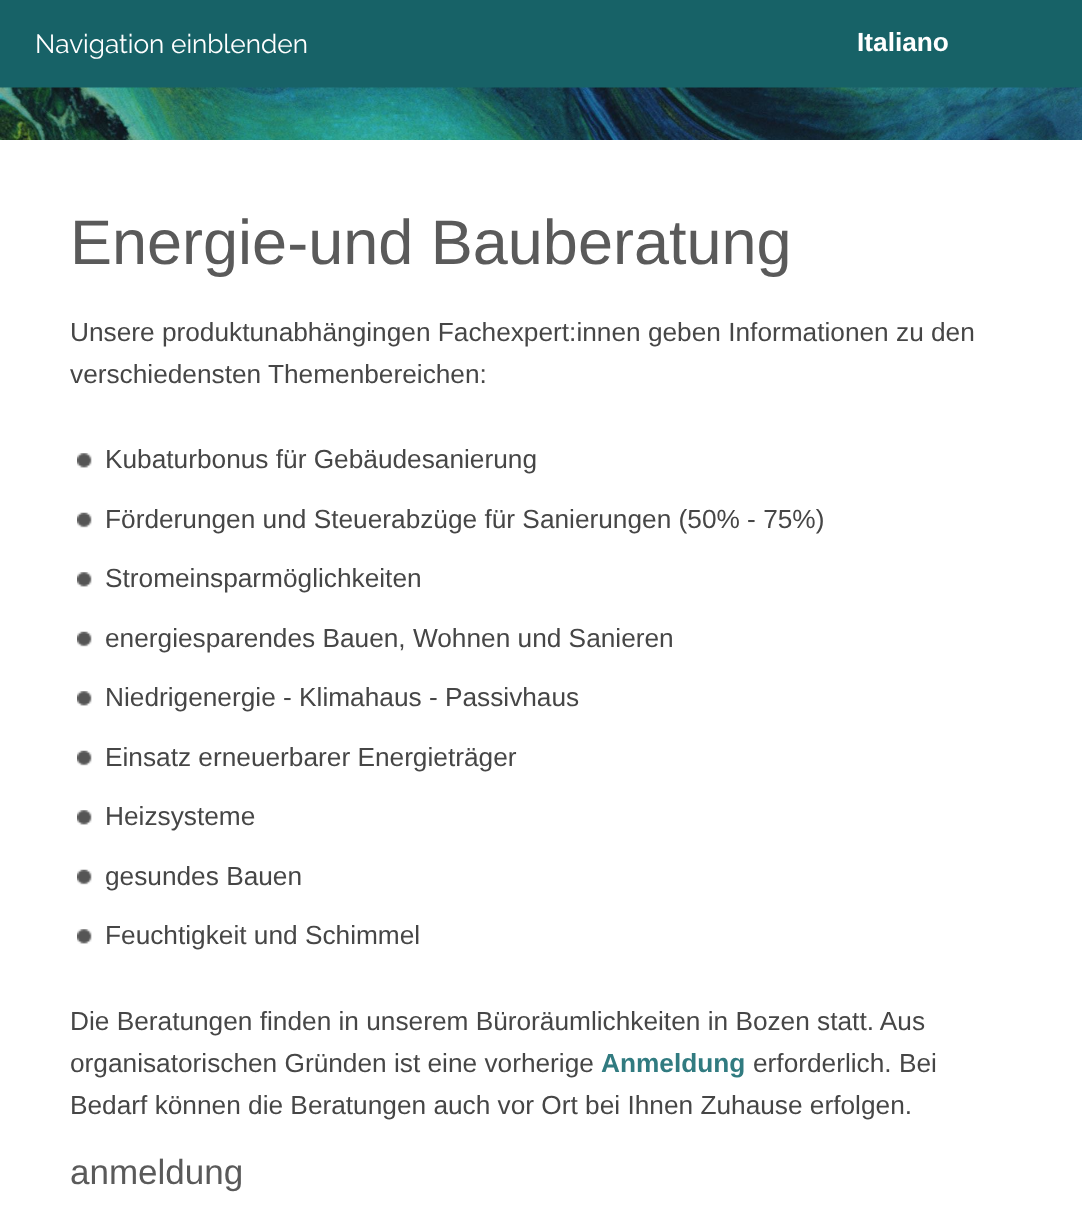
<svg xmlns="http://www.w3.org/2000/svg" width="1082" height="1205">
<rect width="100%" height="100%" fill="#176267"/>
<image x="0" y="87" width="1082" height="53" href="media/1.png"/>
<rect y="140" width="1082" height="1065" fill="#fff"/>
<text x="857" y="51" style="font-family:Liberation Sans;font-size:26.25px;font-weight:bold;fill:#fff">Italiano</text>
<text x="70" y="264" style="font-family:Liberation Sans;font-size:63px;fill:#5a5a5a">Energie-und Bauberatung</text>
<text x="70" y="341" style="font-family:Liberation Sans;font-size:26.25px;fill:#464646">Unsere produktunabhängingen Fachexpert:innen geben Informationen zu den</text>
<text x="70" y="383" style="font-family:Liberation Sans;font-size:26.25px;fill:#464646">verschiedensten Themenbereichen:</text>
<image x="77" y="453" width="15" height="15" href="media/2.png"/>
<text x="105" y="468" style="font-family:Liberation Sans;font-size:26.25px;fill:#464646">Kubaturbonus für Gebäudesanierung</text>
<image x="77" y="512" width="15" height="16" href="media/3.png"/>
<text x="105" y="528" style="font-family:Liberation Sans;font-size:26.25px;fill:#464646">Förderungen und Steuerabzüge für Sanierungen (50% - 75%)</text>
<image x="77" y="572" width="15" height="15" href="media/2.png"/>
<text x="105" y="587" style="font-family:Liberation Sans;font-size:26.25px;fill:#464646">Stromeinsparmöglichkeiten</text>
<image x="77" y="631" width="15" height="16" href="media/3.png"/>
<text x="105" y="647" style="font-family:Liberation Sans;font-size:26.25px;fill:#464646">energiesparendes Bauen, Wohnen und Sanieren</text>
<image x="77" y="691" width="15" height="15" href="media/2.png"/>
<text x="105" y="706" style="font-family:Liberation Sans;font-size:26.25px;fill:#464646">Niedrigenergie - Klimahaus - Passivhaus</text>
<image x="77" y="750" width="15" height="16" href="media/3.png"/>
<text x="105" y="766" style="font-family:Liberation Sans;font-size:26.25px;fill:#464646">Einsatz erneuerbarer Energieträger</text>
<image x="77" y="810" width="15" height="15" href="media/2.png"/>
<text x="105" y="825" style="font-family:Liberation Sans;font-size:26.25px;fill:#464646">Heizsysteme</text>
<image x="77" y="869" width="15" height="16" href="media/3.png"/>
<text x="105" y="885" style="font-family:Liberation Sans;font-size:26.25px;fill:#464646">gesundes Bauen</text>
<image x="77" y="929" width="15" height="15" href="media/2.png"/>
<text x="105" y="944" style="font-family:Liberation Sans;font-size:26.25px;fill:#464646">Feuchtigkeit und Schimmel</text>
<text x="70" y="1030" style="font-family:Liberation Sans;font-size:26.25px;fill:#464646">Die Beratungen finden in unserem Büroräumlichkeiten in Bozen statt. Aus</text>
<text x="70" y="1072" style="font-family:Liberation Sans;font-size:26.25px;fill:#464646">organisatorischen Gründen ist eine vorherige</text>
<text x="601" y="1072" style="font-family:Liberation Sans;font-size:26.25px;font-weight:bold;fill:#317b80">Anmeldung</text>
<text x="753" y="1072" style="font-family:Liberation Sans;font-size:26.25px;fill:#464646">erforderlich. Bei</text>
<text x="70" y="1114" style="font-family:Liberation Sans;font-size:26.25px;fill:#464646">Bedarf können die Beratungen auch vor Ort bei Ihnen Zuhause erfolgen.</text>
<text x="70" y="1184" style="font-family:Liberation Sans;font-size:35px;fill:#5a5a5a">anmeldung</text>
<text x="35" y="53" style="font-family:Raleway;font-size:26.25px;fill:#fff">Navigation einblenden</text>
</svg>
